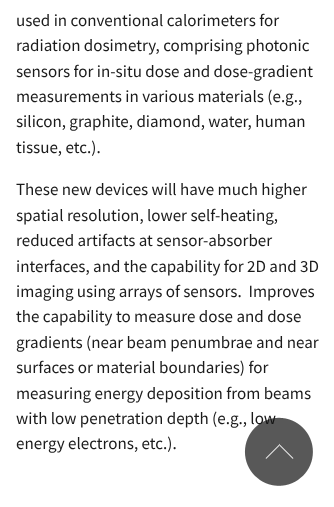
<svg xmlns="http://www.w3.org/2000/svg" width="334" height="507">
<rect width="100%" height="100%" fill="#fff"/>
<text x="16" y="26" style="font-family:Source Sans Pro;font-size:17px;fill:#1b1b1b">used in conventional calorimeters for</text>
<text x="16" y="51" style="font-family:Source Sans Pro;font-size:17px;fill:#1b1b1b">radiation dosimetry, comprising photonic</text>
<text x="16" y="77" style="font-family:Source Sans Pro;font-size:17px;fill:#1b1b1b">sensors for in-situ dose and dose-gradient</text>
<text x="16" y="102" style="font-family:Source Sans Pro;font-size:17px;fill:#1b1b1b">measurements in various materials (e.g.,</text>
<text x="16" y="127" style="font-family:Source Sans Pro;font-size:17px;fill:#1b1b1b">silicon, graphite, diamond, water, human</text>
<text x="16" y="153" style="font-family:Source Sans Pro;font-size:17px;fill:#1b1b1b">tissue, etc.).</text>
<text x="16" y="195" style="font-family:Source Sans Pro;font-size:17px;fill:#1b1b1b">These new devices will have much higher</text>
<text x="16" y="221" style="font-family:Source Sans Pro;font-size:17px;fill:#1b1b1b">spatial resolution, lower self-heating,</text>
<text x="16" y="246" style="font-family:Source Sans Pro;font-size:17px;fill:#1b1b1b">reduced artifacts at sensor-absorber</text>
<text x="16" y="272" style="font-family:Source Sans Pro;font-size:17px;fill:#1b1b1b">interfaces, and the capability for 2D and 3D</text>
<text x="16" y="297" style="font-family:Source Sans Pro;font-size:17px;fill:#1b1b1b" xml:space="preserve">imaging using arrays of sensors.  Improves</text>
<text x="16" y="322" style="font-family:Source Sans Pro;font-size:17px;fill:#1b1b1b">the capability to measure dose and dose</text>
<text x="16" y="348" style="font-family:Source Sans Pro;font-size:17px;fill:#1b1b1b">gradients (near beam penumbrae and near</text>
<text x="16" y="373" style="font-family:Source Sans Pro;font-size:17px;fill:#1b1b1b">surfaces or material boundaries) for</text>
<text x="16" y="399" style="font-family:Source Sans Pro;font-size:17px;fill:#1b1b1b">measuring energy deposition from beams</text>
<text x="16" y="424" style="font-family:Source Sans Pro;font-size:17px;fill:#1b1b1b">with low penetration depth (e.g., low</text>
<text x="16" y="449" style="font-family:Source Sans Pro;font-size:17px;fill:#1b1b1b">energy electrons, etc.).</text>
<image x="244" y="417" width="69" height="69" href="media/1.png"/>
</svg>
